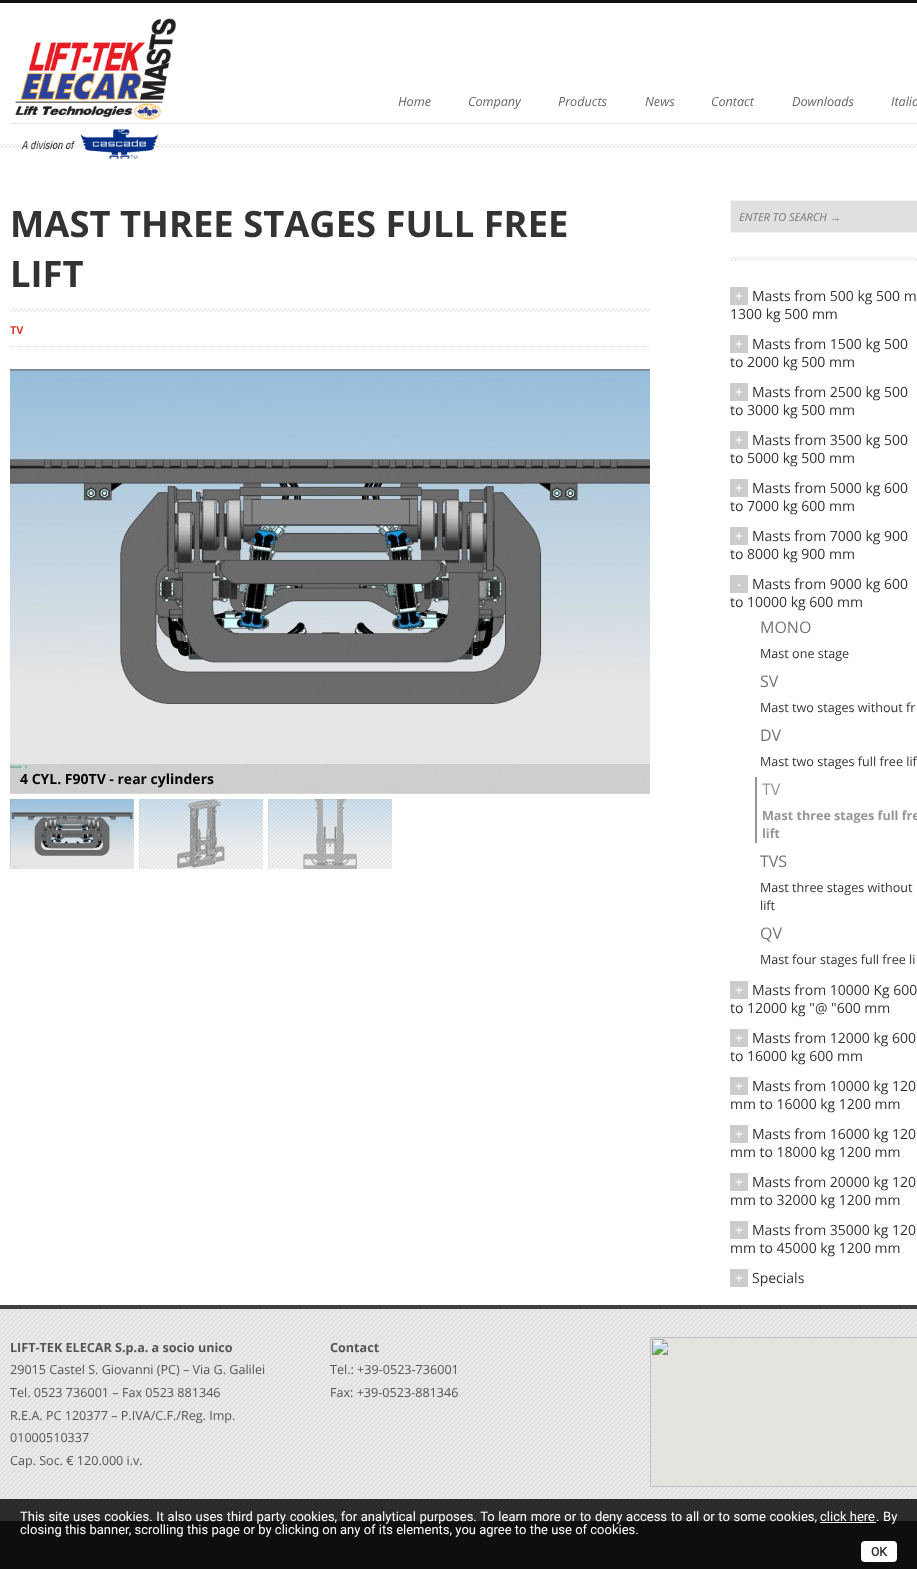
<svg xmlns="http://www.w3.org/2000/svg" width="917" height="1569">
<rect width="100%" height="100%" fill="#222"/>
<rect y="3" width="917" height="1302" fill="#fff"/>
<rect width="917" height="3" fill="#111"/>
<image x="0" y="144" width="917" height="4" href="media/1.png"/>
<rect x="10" y="123" width="907" height="1" fill="#e9e9e9"/>
<image x="15" y="18" width="161" height="141" href="media/2.png"/>
<text x="398" y="106" style="font-family:Open Sans;font-size:12.6px;font-style:italic;fill:#666">Home</text>
<text x="468" y="106" style="font-family:Open Sans;font-size:12.6px;font-style:italic;fill:#666">Company</text>
<text x="558" y="106" style="font-family:Open Sans;font-size:12.6px;font-style:italic;fill:#666">Products</text>
<text x="645" y="106" style="font-family:Open Sans;font-size:12.6px;font-style:italic;fill:#666">News</text>
<text x="711" y="106" style="font-family:Open Sans;font-size:12.6px;font-style:italic;fill:#666">Contact</text>
<text x="792" y="106" style="font-family:Open Sans;font-size:12.6px;font-style:italic;fill:#666">Downloads</text>
<text x="891" y="106" style="font-family:Open Sans;font-size:12.6px;font-style:italic;fill:#666">Italia</text>
<image x="10" y="308" width="640" height="4" href="media/3.png"/>
<text x="10" y="237" style="font-family:Open Sans;font-size:36.4px;font-weight:bold;fill:#333">MAST THREE STAGES FULL FREE</text>
<text x="10" y="287" style="font-family:Open Sans;font-size:36.4px;font-weight:bold;fill:#333">LIFT</text>
<path d="M10 346.5h640" fill="none" stroke="#d9d9d9" stroke-dasharray="1 1"/>
<text x="10" y="334" style="font-family:Open Sans;font-size:11px;font-weight:bold;fill:#d83f28">TV</text>
<image x="10" y="369" width="640" height="424" href="media/4.png"/>
<image x="10" y="793" width="640" height="1" href="media/5.png"/>
<rect x="10" y="764" width="640" height="30" fill="#0000001a"/>
<text x="20" y="784" style="font-family:Open Sans;font-size:14px;font-weight:bold;fill:#000">4 CYL. F90TV - rear cylinders</text>
<image x="10" y="799" width="124" height="70" href="media/6.png"/>
<image x="139" y="799" width="124" height="70" href="media/7.png"/>
<image x="139" y="799" width="124" height="70" href="media/8.png"/>
<image x="268" y="799" width="124" height="70" href="media/7.png"/>
<image x="268" y="799" width="124" height="70" href="media/9.png"/>
<image x="730" y="257" width="187" height="4" href="media/10.png"/>
<rect x="730.5" y="200.5" width="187" height="32" fill="#e0e0e0" stroke="#f2f2f2"/>
<text x="739" y="221" style="font-family:Open Sans;font-size:11px;font-style:italic;fill:#757575">ENTER TO SEARCH</text>
<text x="830" y="221" style="font-family:Liberation Sans;font-size:11px;font-style:italic;fill:#757575">→</text>
<rect x="730" y="287" width="18" height="18" fill="#ccc"/>
<text x="735" y="301" style="font-family:Open Sans;font-size:14px;fill:#fff">+</text>
<text x="752" y="301" style="font-family:Open Sans;font-size:14px;fill:#333">Masts from 500 kg 500 m</text>
<text x="730" y="319" style="font-family:Open Sans;font-size:14px;fill:#333">1300 kg 500 mm</text>
<rect x="730" y="335" width="18" height="18" fill="#ccc"/>
<text x="735" y="349" style="font-family:Open Sans;font-size:14px;fill:#fff">+</text>
<text x="752" y="349" style="font-family:Open Sans;font-size:14px;fill:#333">Masts from 1500 kg 500</text>
<text x="730" y="367" style="font-family:Open Sans;font-size:14px;fill:#333">to 2000 kg 500 mm</text>
<rect x="730" y="383" width="18" height="18" fill="#ccc"/>
<text x="735" y="397" style="font-family:Open Sans;font-size:14px;fill:#fff">+</text>
<text x="752" y="397" style="font-family:Open Sans;font-size:14px;fill:#333">Masts from 2500 kg 500</text>
<text x="730" y="415" style="font-family:Open Sans;font-size:14px;fill:#333">to 3000 kg 500 mm</text>
<rect x="730" y="431" width="18" height="18" fill="#ccc"/>
<text x="735" y="445" style="font-family:Open Sans;font-size:14px;fill:#fff">+</text>
<text x="752" y="445" style="font-family:Open Sans;font-size:14px;fill:#333">Masts from 3500 kg 500</text>
<text x="730" y="463" style="font-family:Open Sans;font-size:14px;fill:#333">to 5000 kg 500 mm</text>
<rect x="730" y="479" width="18" height="18" fill="#ccc"/>
<text x="735" y="493" style="font-family:Open Sans;font-size:14px;fill:#fff">+</text>
<text x="752" y="493" style="font-family:Open Sans;font-size:14px;fill:#333">Masts from 5000 kg 600</text>
<text x="730" y="511" style="font-family:Open Sans;font-size:14px;fill:#333">to 7000 kg 600 mm</text>
<rect x="730" y="527" width="18" height="18" fill="#ccc"/>
<text x="735" y="541" style="font-family:Open Sans;font-size:14px;fill:#fff">+</text>
<text x="752" y="541" style="font-family:Open Sans;font-size:14px;fill:#333">Masts from 7000 kg 900</text>
<text x="730" y="559" style="font-family:Open Sans;font-size:14px;fill:#333">to 8000 kg 900 mm</text>
<rect x="730" y="575" width="18" height="18" fill="#ccc"/>
<text x="737" y="589" style="font-family:Open Sans;font-size:14px;fill:#fff">-</text>
<text x="752" y="589" style="font-family:Open Sans;font-size:14px;fill:#333">Masts from 9000 kg 600</text>
<text x="730" y="607" style="font-family:Open Sans;font-size:14px;fill:#333">to 10000 kg 600 mm</text>
<text x="760" y="633" style="font-family:Open Sans;font-size:16px;fill:#757575">MONO</text>
<text x="760" y="658" style="font-family:Open Sans;font-size:12.6px;fill:#333">Mast one stage</text>
<text x="760" y="687" style="font-family:Open Sans;font-size:16px;fill:#757575">SV</text>
<text x="760" y="712" style="font-family:Open Sans;font-size:12.6px;fill:#333">Mast two stages without fr</text>
<text x="760" y="741" style="font-family:Open Sans;font-size:16px;fill:#757575">DV</text>
<text x="760" y="766" style="font-family:Open Sans;font-size:12.6px;fill:#333">Mast two stages full free lif</text>
<rect x="755" y="777" width="2" height="66" fill="#969696"/>
<text x="762" y="795" style="font-family:Open Sans;font-size:16px;fill:#969696">TV</text>
<text x="762" y="820" style="font-family:Open Sans;font-size:12.6px;font-weight:bold;fill:#969696">Mast three stages full fre</text>
<text x="762" y="838" style="font-family:Open Sans;font-size:12.6px;font-weight:bold;fill:#969696">lift</text>
<text x="760" y="867" style="font-family:Open Sans;font-size:16px;fill:#757575">TVS</text>
<text x="760" y="892" style="font-family:Open Sans;font-size:12.6px;fill:#333">Mast three stages without</text>
<text x="760" y="910" style="font-family:Open Sans;font-size:12.6px;fill:#333">lift</text>
<text x="760" y="939" style="font-family:Open Sans;font-size:16px;fill:#757575">QV</text>
<text x="760" y="964" style="font-family:Open Sans;font-size:12.6px;fill:#333">Mast four stages full free li</text>
<rect x="730" y="981" width="18" height="18" fill="#ccc"/>
<text x="735" y="995" style="font-family:Open Sans;font-size:14px;fill:#fff">+</text>
<text x="752" y="995" style="font-family:Open Sans;font-size:14px;fill:#333">Masts from 10000 Kg 600</text>
<text x="730" y="1013" style="font-family:Open Sans;font-size:14px;fill:#333">to 12000 kg "@ "600 mm</text>
<rect x="730" y="1029" width="18" height="18" fill="#ccc"/>
<text x="735" y="1043" style="font-family:Open Sans;font-size:14px;fill:#fff">+</text>
<text x="752" y="1043" style="font-family:Open Sans;font-size:14px;fill:#333">Masts from 12000 kg 600</text>
<text x="730" y="1061" style="font-family:Open Sans;font-size:14px;fill:#333">to 16000 kg 600 mm</text>
<rect x="730" y="1077" width="18" height="18" fill="#ccc"/>
<text x="735" y="1091" style="font-family:Open Sans;font-size:14px;fill:#fff">+</text>
<text x="752" y="1091" style="font-family:Open Sans;font-size:14px;fill:#333">Masts from 10000 kg 120</text>
<text x="730" y="1109" style="font-family:Open Sans;font-size:14px;fill:#333">mm to 16000 kg 1200 mm</text>
<rect x="730" y="1125" width="18" height="18" fill="#ccc"/>
<text x="735" y="1139" style="font-family:Open Sans;font-size:14px;fill:#fff">+</text>
<text x="752" y="1139" style="font-family:Open Sans;font-size:14px;fill:#333">Masts from 16000 kg 120</text>
<text x="730" y="1157" style="font-family:Open Sans;font-size:14px;fill:#333">mm to 18000 kg 1200 mm</text>
<rect x="730" y="1173" width="18" height="18" fill="#ccc"/>
<text x="735" y="1187" style="font-family:Open Sans;font-size:14px;fill:#fff">+</text>
<text x="752" y="1187" style="font-family:Open Sans;font-size:14px;fill:#333">Masts from 20000 kg 120</text>
<text x="730" y="1205" style="font-family:Open Sans;font-size:14px;fill:#333">mm to 32000 kg 1200 mm</text>
<rect x="730" y="1221" width="18" height="18" fill="#ccc"/>
<text x="735" y="1235" style="font-family:Open Sans;font-size:14px;fill:#fff">+</text>
<text x="752" y="1235" style="font-family:Open Sans;font-size:14px;fill:#333">Masts from 35000 kg 120</text>
<text x="730" y="1253" style="font-family:Open Sans;font-size:14px;fill:#333">mm to 45000 kg 1200 mm</text>
<rect x="730" y="1269" width="18" height="18" fill="#ccc"/>
<text x="735" y="1283" style="font-family:Open Sans;font-size:14px;fill:#fff">+</text>
<text x="752" y="1283" style="font-family:Open Sans;font-size:14px;fill:#333">Specials</text>
<rect y="1309" width="917" height="212" fill="#eaeaea"/>
<image x="0" y="1309" width="917" height="212" href="media/11.png"/>
<rect y="1305" width="917" height="4" fill="#404040"/>
<text x="10" y="1352" style="font-family:Open Sans;font-size:12.6px;font-weight:bold;fill:#555">LIFT-TEK ELECAR S.p.a. a socio unico</text>
<text x="10" y="1374" style="font-family:Open Sans;font-size:12.6px;fill:#555">29015 Castel S. Giovanni (PC) – Via G. Galilei</text>
<text x="10" y="1397" style="font-family:Open Sans;font-size:12.6px;fill:#555">Tel. 0523 736001 – Fax 0523 881346</text>
<text x="10" y="1420" style="font-family:Open Sans;font-size:12.6px;fill:#555">R.E.A. PC 120377 – P.IVA/C.F./Reg. Imp.</text>
<text x="10" y="1442" style="font-family:Open Sans;font-size:12.6px;fill:#555">01000510337</text>
<text x="10" y="1465" style="font-family:Open Sans;font-size:12.6px;fill:#555">Cap. Soc. € 120.000 i.v.</text>
<text x="330" y="1352" style="font-family:Open Sans;font-size:12.6px;font-weight:bold;fill:#555">Contact</text>
<text x="330" y="1374" style="font-family:Open Sans;font-size:12.6px;fill:#555">Tel.: +39-0523-736001</text>
<text x="330" y="1397" style="font-family:Open Sans;font-size:12.6px;fill:#555">Fax: +39-0523-881346</text>
<image x="650" y="1337" width="267" height="150" href="media/12.png"/>
<rect y="1499" width="917" height="70" fill="#0a0a0ad9"/>
<text x="20" y="1521" word-spacing="0.4" style="font-family:Roboto;font-size:13px;fill:#fff">This site uses cookies. It also uses third party cookies, for analytical purposes. To learn more or to deny access to all or to some cookies,</text>
<text x="820" y="1521" style="font-family:Roboto;font-size:13px;fill:#fff">click here</text>
<rect x="820" y="1522" width="56" height="1" fill="#fff"/>
<text x="876" y="1521" word-spacing="0.4" style="font-family:Roboto;font-size:13px;fill:#fff">. By</text>
<text x="20" y="1534" style="font-family:Roboto;font-size:13px;fill:#fff">closing this banner, scrolling this page or by clicking on any of its elements, you agree to the use of cookies.</text>
<rect x="861" y="1541" width="36" height="21" rx="4" fill="#fff"/>
<text x="871" y="1556" style="font-family:Roboto;font-size:12px;font-weight:bold;fill:#2d2d2d">OK</text>
</svg>
